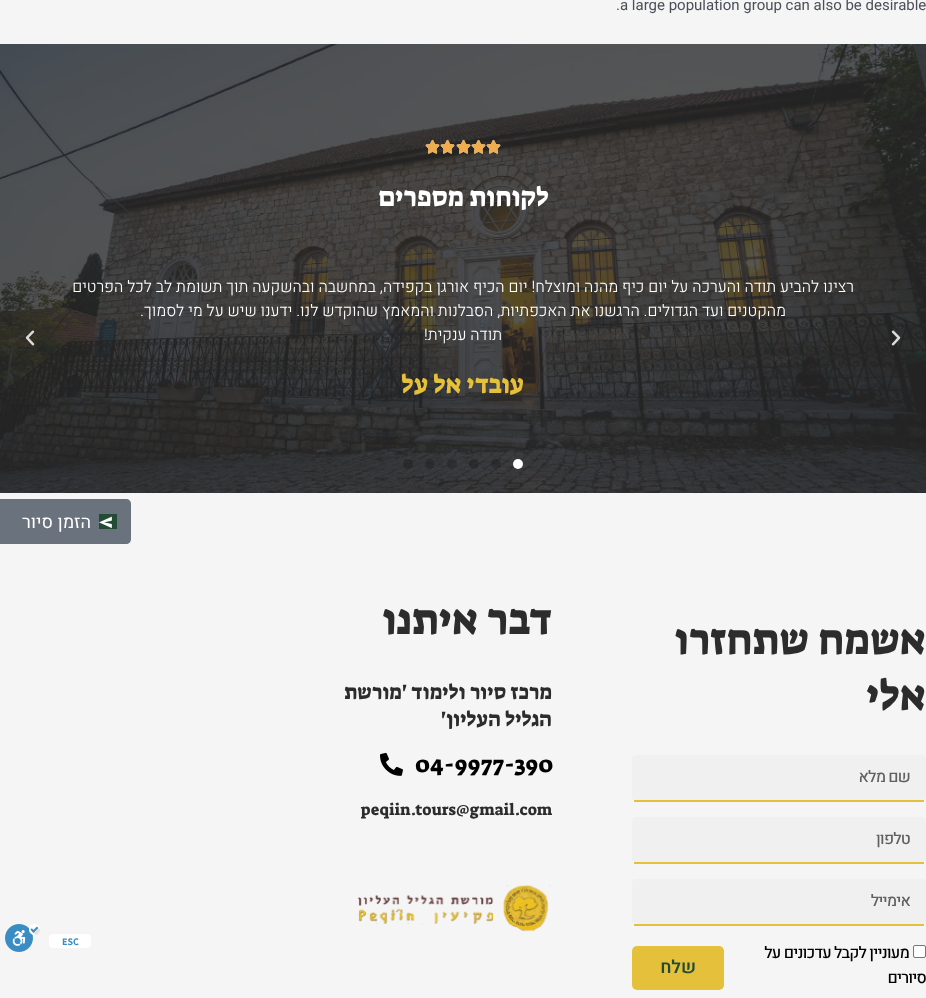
<svg xmlns="http://www.w3.org/2000/svg" width="926" height="998">
<rect width="100%" height="100%" fill="#f5f5f5"/>
<text x="616" y="10" style="font-family:Roboto;font-size:15px;fill:#4b4f58">.a large population group can also be desirable</text>
<image x="0" y="44" width="926" height="449" href="media/1.png"/>
<image x="486" y="139" width="15" height="15" href="media/2.png"/>
<image x="486" y="139" width="15" height="15" href="media/3.png"/>
<image x="471" y="139" width="15" height="15" href="media/4.png"/>
<image x="471" y="139" width="15" height="15" href="media/5.png"/>
<image x="456" y="139" width="15" height="15" href="media/6.png"/>
<image x="456" y="139" width="15" height="15" href="media/7.png"/>
<image x="440" y="139" width="15" height="15" href="media/8.png"/>
<image x="440" y="139" width="15" height="15" href="media/9.png"/>
<image x="425" y="139" width="15" height="15" href="media/10.png"/>
<image x="425" y="139" width="15" height="15" href="media/11.png"/>
<text x="549" y="206" style="font-family:Suez One;font-size:27px;direction:rtl;fill:#fff">לקוחות מספרים</text>
<image x="891" y="330" width="10" height="16" href="media/12.png"/>
<text x="854" y="292" style="font-family:Heebo;font-size:16px;font-weight:300;direction:rtl;fill:#fff">רצינו להביע תודה והערכה על יום כיף מהנה ומוצלח! יום הכיף אורגן בקפידה, במחשבה ובהשקעה תוך תשומת לב לכל הפרטים</text>
<text x="786" y="316" style="font-family:Heebo;font-size:16px;font-weight:300;direction:rtl;fill:#fff">מהקטנים ועד הגדולים. הרגשנו את האכפתיות, הסבלנות והמאמץ שהוקדש לנו. ידענו שיש על מי לסמוך.</text>
<text x="502" y="340" style="font-family:Heebo;font-size:16px;font-weight:300;direction:rtl;fill:#fff">תודה ענקית!</text>
<text x="524" y="393" style="font-family:Suez One;font-size:26px;direction:rtl;fill:#e5c13b">עובדי אל על</text>
<image x="25" y="330" width="10" height="16" href="media/13.png"/>
<circle cx="518" cy="464" r="5" fill="#fff"/>
<circle cx="496" cy="464" r="5" fill="#00000033"/>
<circle cx="474" cy="464" r="5" fill="#00000033"/>
<circle cx="452" cy="464" r="5" fill="#00000033"/>
<circle cx="430" cy="464" r="5" fill="#00000033"/>
<circle cx="408" cy="464" r="5" fill="#00000033"/>
<path d="M-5 499h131c3 0 5 2 5 5v35c0 3-2 5-5 5h-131z" fill="#69727d"/>
<image x="99" y="514" width="18" height="15" href="media/14.png"/>
<text x="91" y="528" style="font-family:Heebo;font-size:18px;direction:rtl;fill:#fff">הזמן סיור</text>
<text x="926" y="654" style="font-family:Suez One;font-size:43px;direction:rtl;fill:#2c2c2c">אשמח שתחזרו</text>
<text x="926" y="710" style="font-family:Suez One;font-size:43px;direction:rtl;fill:#2c2c2c">אלי</text>
<path d="M636 755h286c2 0 4 2 4 4v39c0 1-2 2-4 2h-286c-2 0-4-1-4-2v-39c0-2 2-4 4-4z" fill="#f0f0f0"/>
<rect x="634" y="800" width="290" height="2" fill="#e5c13b"/>
<text x="910" y="782" style="font-family:Heebo;font-size:16px;font-weight:500;letter-spacing:-0.8px;direction:rtl;fill:#606060">שם מלא</text>
<path d="M636 817h286c2 0 4 2 4 4v39c0 1-2 2-4 2h-286c-2 0-4-1-4-2v-39c0-2 2-4 4-4z" fill="#f0f0f0"/>
<rect x="634" y="862" width="290" height="2" fill="#e5c13b"/>
<text x="910" y="844" style="font-family:Heebo;font-size:16px;font-weight:500;letter-spacing:-0.8px;direction:rtl;fill:#606060">טלפון</text>
<path d="M636 879h286c2 0 4 2 4 4v39c0 1-2 2-4 2h-286c-2 0-4-1-4-2v-39c0-2 2-4 4-4z" fill="#f0f0f0"/>
<rect x="634" y="924" width="290" height="2" fill="#e5c13b"/>
<text x="910" y="906" style="font-family:Heebo;font-size:16px;font-weight:500;letter-spacing:-0.8px;direction:rtl;fill:#606060">אימייל</text>
<rect x="913.5" y="945.5" width="12" height="12" rx="1.5" fill="#fff" stroke="#767676"/>
<text x="909" y="958" style="font-family:Heebo;font-size:16px;font-weight:500;letter-spacing:-0.8px;direction:rtl;fill:#000">מעוניין לקבל עדכונים על</text>
<text x="926" y="983" style="font-family:Heebo;font-size:16px;font-weight:500;letter-spacing:-0.8px;direction:rtl;fill:#000">סיורים</text>
<rect x="632" y="946" width="92" height="44" rx="5" fill="#e5c13b"/>
<text x="696" y="973" style="font-family:Heebo;font-size:18px;font-weight:600;direction:rtl;fill:#244b35">שלח</text>
<text x="552" y="634" style="font-family:Suez One;font-size:43px;direction:rtl;fill:#2c2c2c">דבר איתנו</text>
<text x="552" y="699" style="font-family:Suez One;font-size:21px;direction:rtl;fill:#2c2c2c">מרכז סיור ולימוד 'מורשת</text>
<text x="552" y="726" style="font-family:Suez One;font-size:21px;direction:rtl;fill:#2c2c2c">הגליל העליון'</text>
<text x="415" y="772" style="font-family:Suez One;font-size:23px;fill:#000">04-9977-390</text>
<image x="380" y="752" width="23" height="24" href="media/15.png"/>
<text x="361" y="815" style="font-family:Suez One;font-size:16px;fill:#2c2c2c">peqiin.tours@gmail.com</text>
<image x="358" y="885" width="193" height="47" href="media/16.png"/>
<rect x="49" y="934" width="42" height="14" rx="4" fill="#fff"/>
<text x="62" y="945" style="font-family:Assistant;font-size:10px;font-weight:bold;fill:#3a8dc2">ESC</text>
<image x="5" y="924" width="35" height="28" href="media/17.png"/>
</svg>
